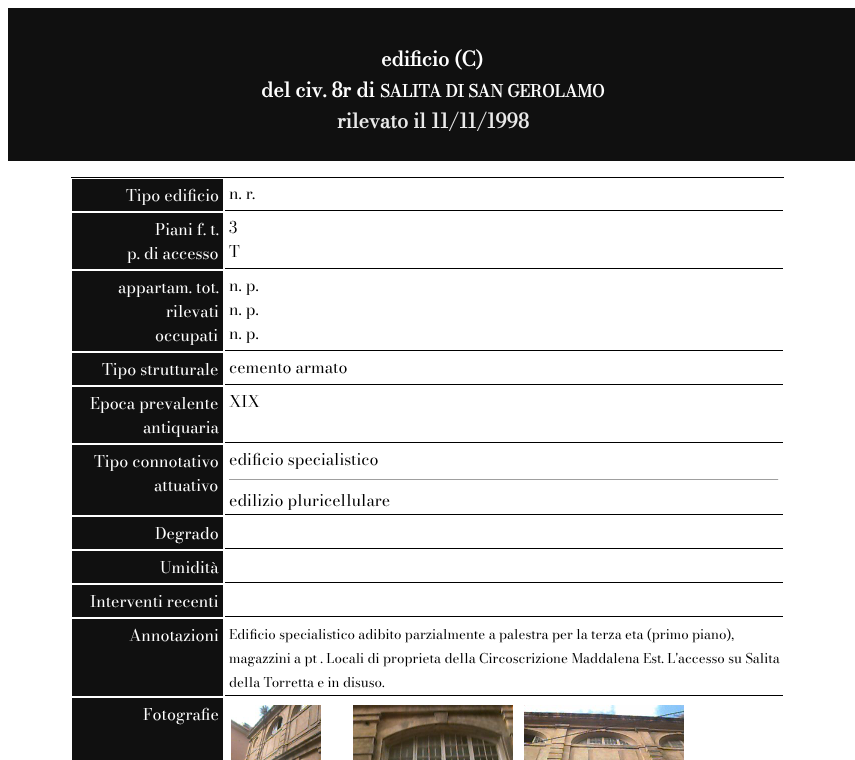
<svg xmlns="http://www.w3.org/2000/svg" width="855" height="760">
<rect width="100%" height="100%" fill="#fff"/>
<rect x="8" y="8" width="847" height="153" fill="#101010"/>
<text x="381" y="66" style="font-family:Bodoni Moda;font-size:20px;font-weight:bold;fill:#fff">edificio (C)</text>
<text x="261" y="97" style="font-family:Bodoni Moda;font-size:20px;font-weight:bold;fill:#fff">del civ. 8r di</text>
<text x="380" y="97" style="font-family:Bodoni Moda;font-size:16.7px;font-weight:bold;fill:#fff">SALITA DI SAN GEROLAMO</text>
<text x="337" y="128" style="font-family:Bodoni Moda;font-size:20px;font-weight:bold;fill:#eaeaea">rilevato il 11/11/1998</text>
<rect x="71" y="177" width="713" height="1" fill="#000"/>
<rect x="72" y="179" width="151" height="32" fill="#101010"/>
<text x="126" y="201" style="font-family:Bodoni Moda;font-size:16px;fill:#fff">Tipo edificio</text>
<rect x="225" y="210" width="558" height="1" fill="#000"/>
<text x="229" y="199" style="font-family:Bodoni Moda;font-size:16px;fill:#000">n. r.</text>
<rect x="72" y="213" width="151" height="56" fill="#101010"/>
<text x="155" y="235" style="font-family:Bodoni Moda;font-size:16px;fill:#fff">Piani f. t.</text>
<text x="127" y="259" style="font-family:Bodoni Moda;font-size:16px;fill:#fff">p. di accesso</text>
<rect x="225" y="268" width="558" height="1" fill="#000"/>
<text x="229" y="233" style="font-family:Bodoni Moda;font-size:16px;fill:#000">3</text>
<text x="229" y="257" style="font-family:Bodoni Moda;font-size:16px;fill:#000">T</text>
<rect x="72" y="271" width="151" height="80" fill="#101010"/>
<text x="118" y="293" style="font-family:Bodoni Moda;font-size:16px;fill:#fff">appartam. tot.</text>
<text x="166" y="317" style="font-family:Bodoni Moda;font-size:16px;fill:#fff">rilevati</text>
<text x="155" y="341" style="font-family:Bodoni Moda;font-size:16px;fill:#fff">occupati</text>
<rect x="225" y="350" width="558" height="1" fill="#000"/>
<text x="229" y="291" style="font-family:Bodoni Moda;font-size:16px;fill:#000">n. p.</text>
<text x="229" y="315" style="font-family:Bodoni Moda;font-size:16px;fill:#000">n. p.</text>
<text x="229" y="339" style="font-family:Bodoni Moda;font-size:16px;fill:#000">n. p.</text>
<rect x="72" y="353" width="151" height="32" fill="#101010"/>
<text x="102" y="375" style="font-family:Bodoni Moda;font-size:16px;fill:#fff">Tipo strutturale</text>
<rect x="225" y="384" width="558" height="1" fill="#000"/>
<text x="229" y="373" style="font-family:Bodoni Moda;font-size:16px;fill:#000">cemento armato</text>
<rect x="72" y="387" width="151" height="56" fill="#101010"/>
<text x="90" y="409" style="font-family:Bodoni Moda;font-size:16px;fill:#fff">Epoca prevalente</text>
<text x="143" y="433" style="font-family:Bodoni Moda;font-size:16px;fill:#fff">antiquaria</text>
<rect x="225" y="442" width="558" height="1" fill="#000"/>
<text x="229" y="407" style="font-family:Bodoni Moda;font-size:16px;fill:#000">XIX</text>
<rect x="72" y="445" width="151" height="70" fill="#101010"/>
<text x="94" y="467" style="font-family:Bodoni Moda;font-size:16px;fill:#fff">Tipo connotativo</text>
<text x="154" y="491" style="font-family:Bodoni Moda;font-size:16px;fill:#fff">attuativo</text>
<rect x="225" y="514" width="558" height="1" fill="#000"/>
<text x="229" y="465" style="font-family:Bodoni Moda;font-size:16px;fill:#000">edificio specialistico</text>
<rect x="229" y="479" width="550" height="1" fill="#9f9f9f"/>
<rect x="778" y="479" width="1" height="1" fill="#eee"/>
<text x="229" y="506" style="font-family:Bodoni Moda;font-size:16px;fill:#000">edilizio pluricellulare</text>
<rect x="72" y="517" width="151" height="32" fill="#101010"/>
<text x="155" y="539" style="font-family:Bodoni Moda;font-size:16px;fill:#fff">Degrado</text>
<rect x="225" y="548" width="558" height="1" fill="#000"/>
<rect x="72" y="551" width="151" height="32" fill="#101010"/>
<text x="160" y="573" style="font-family:Bodoni Moda;font-size:16px;fill:#fff">Umidità</text>
<rect x="225" y="582" width="558" height="1" fill="#000"/>
<rect x="72" y="585" width="151" height="32" fill="#101010"/>
<text x="90" y="607" style="font-family:Bodoni Moda;font-size:16px;fill:#fff">Interventi recenti</text>
<rect x="225" y="616" width="558" height="1" fill="#000"/>
<rect x="72" y="619" width="151" height="77" fill="#101010"/>
<text x="129" y="641" style="font-family:Bodoni Moda;font-size:16px;fill:#fff">Annotazioni</text>
<rect x="225" y="695" width="558" height="1" fill="#000"/>
<text x="229" y="639" style="font-family:Bodoni Moda;font-size:13.35px;fill:#000">Edificio specialistico adibito parzialmente a palestra per la terza eta (primo piano),</text>
<text x="229" y="663" style="font-family:Bodoni Moda;font-size:13.35px;fill:#000">magazzini a pt . Locali di proprieta della Circoscrizione Maddalena Est. L'accesso su Salita</text>
<text x="229" y="687" style="font-family:Bodoni Moda;font-size:13.35px;fill:#000">della Torretta e in disuso.</text>
<rect x="72" y="698" width="151" height="62" fill="#101010"/>
<text x="143" y="720" style="font-family:Bodoni Moda;font-size:16px;fill:#fff">Fotografie</text>
<image x="231" y="705" width="90" height="55" href="media/1.png"/>
<image x="353" y="705" width="160" height="55" href="media/2.png"/>
<image x="524" y="705" width="160" height="55" href="media/3.png"/>
</svg>
